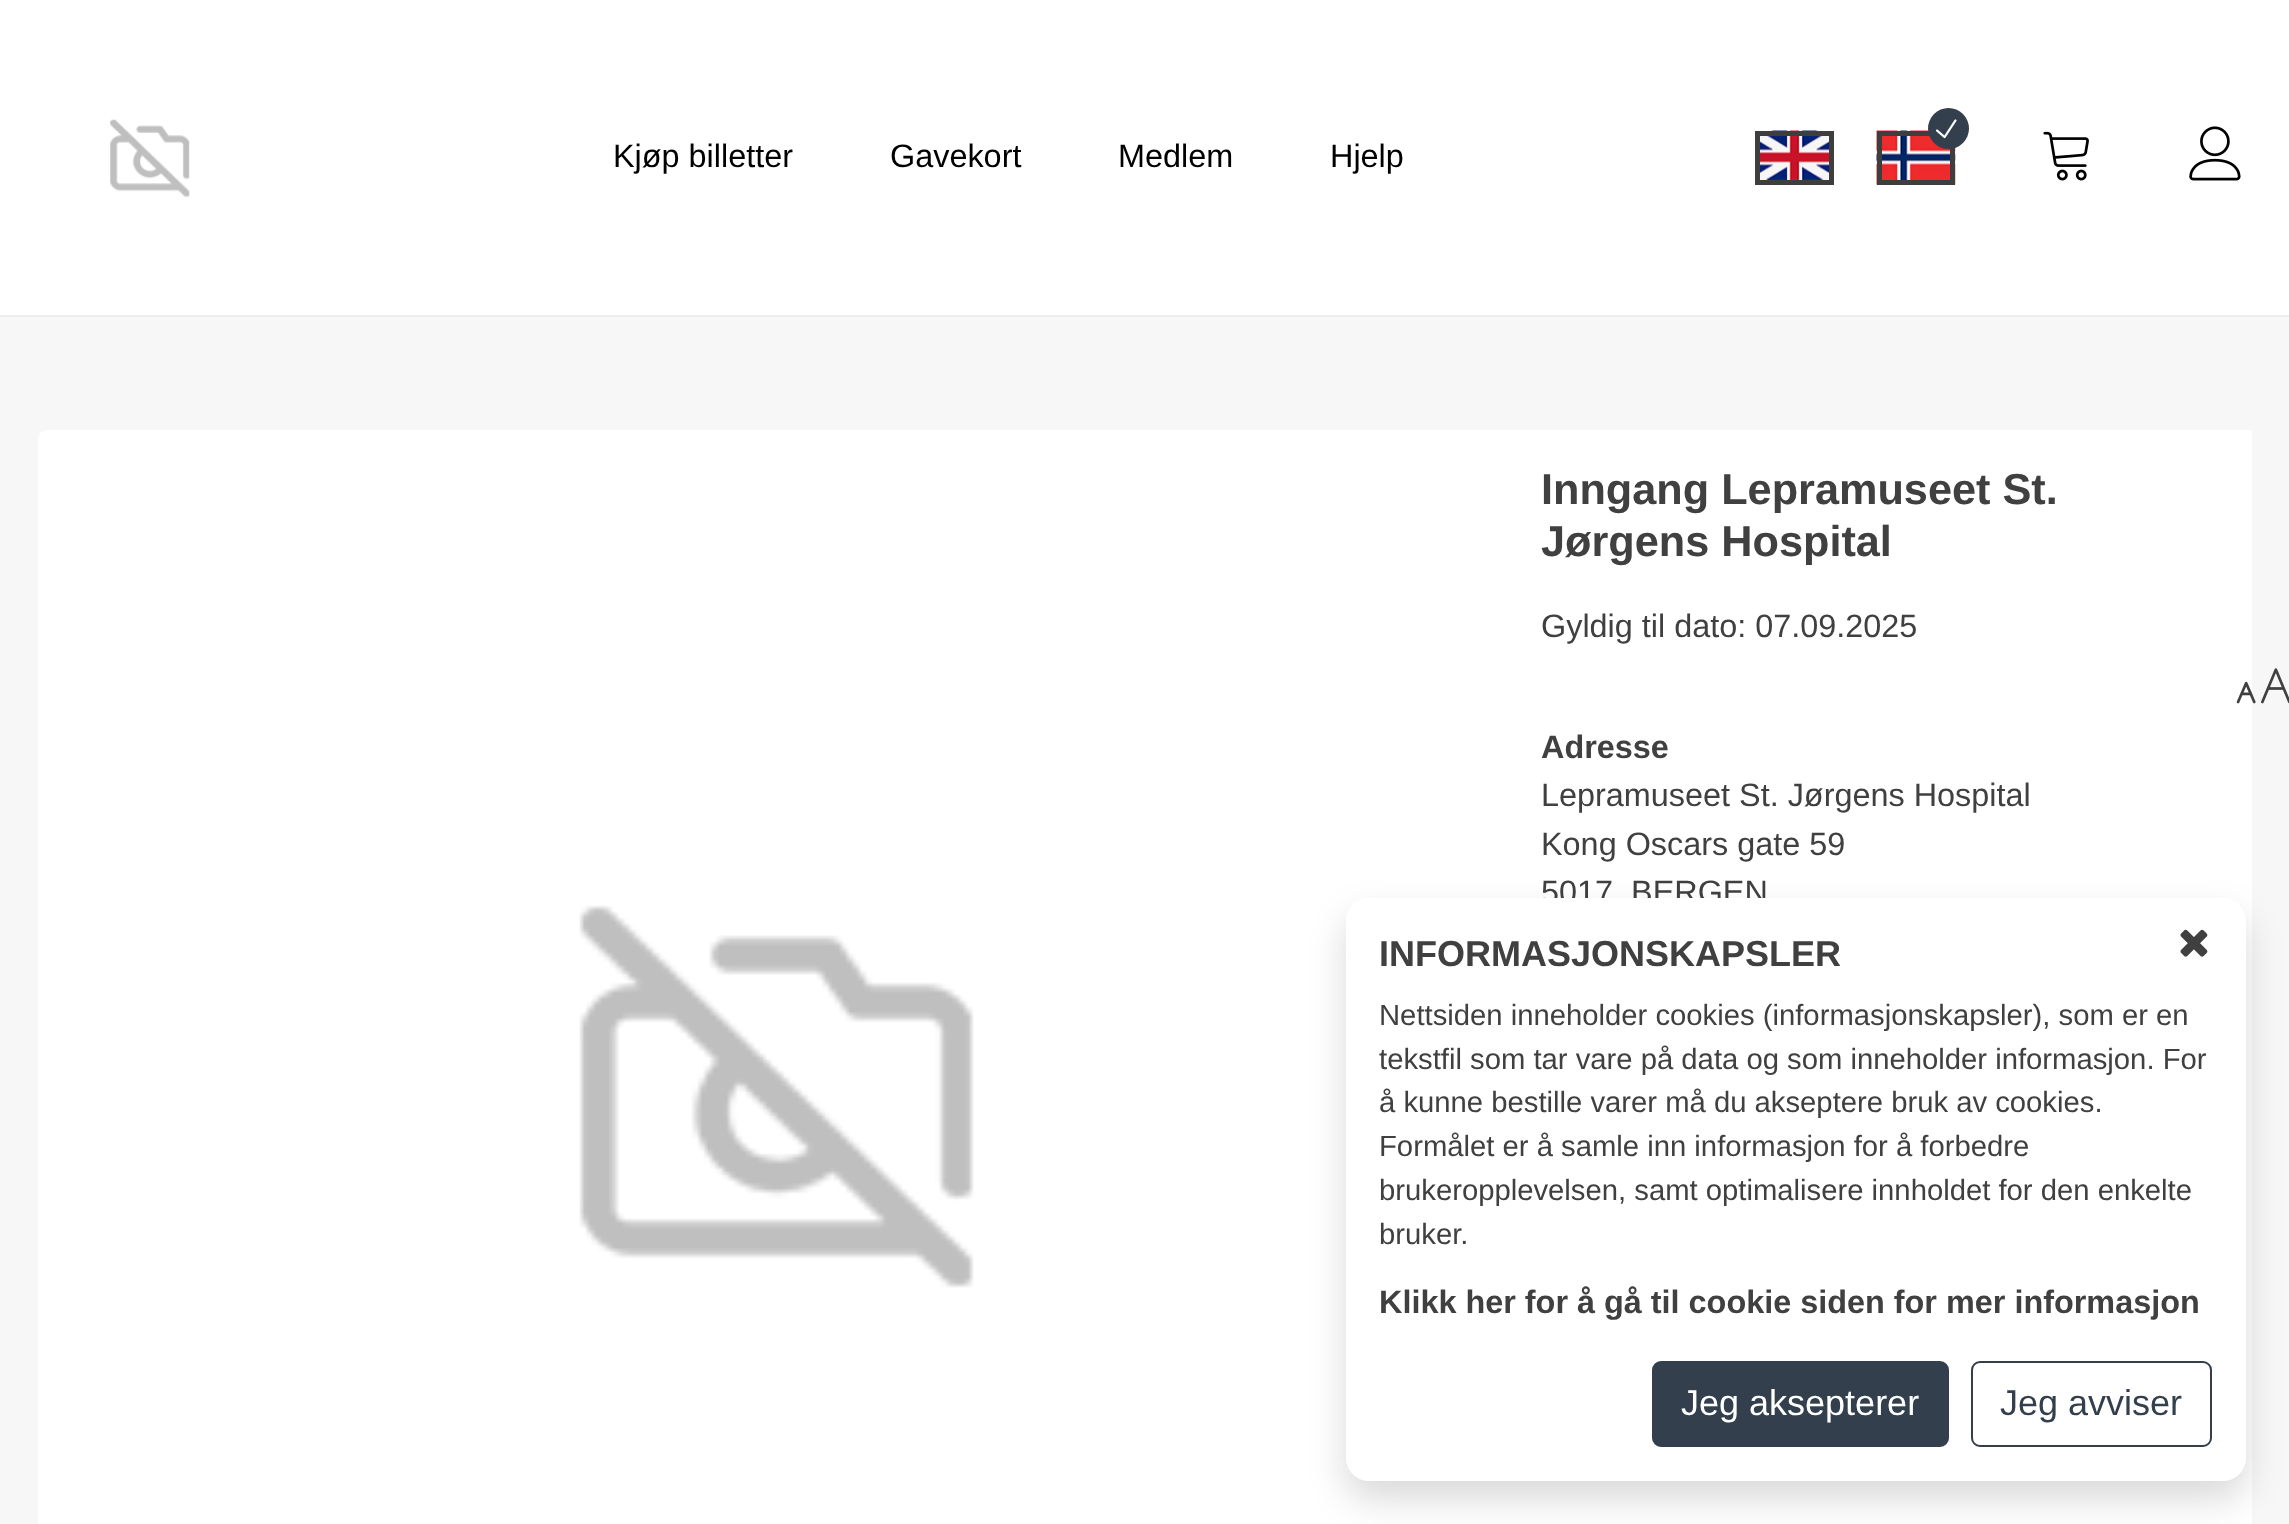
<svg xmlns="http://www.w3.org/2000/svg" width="2289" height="1524">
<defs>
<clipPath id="clip1"><path d="M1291 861h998v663h-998zm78 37h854c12.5 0 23 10.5 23 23v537c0 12.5-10.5 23-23 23h-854c-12.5 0-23-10.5-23-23v-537c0-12.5 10.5-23 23-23z" clip-rule="evenodd"/></clipPath>
</defs>
<rect width="100%" height="100%" fill="#f7f7f7"/>
<rect width="2289" height="315" fill="#fff"/>
<rect y="315" width="2289" height="2" fill="#eee"/>
<image x="110" y="119" width="80" height="79" href="media/1.png"/>
<text x="613" y="167" style="font-family:Liberation Sans;font-size:32.4px;fill:#000">Kjøp billetter</text>
<text x="890" y="167" style="font-family:Liberation Sans;font-size:32.4px;fill:#000">Gavekort</text>
<text x="1118" y="167" style="font-family:Liberation Sans;font-size:32.4px;fill:#000">Medlem</text>
<text x="1330" y="167" style="font-family:Liberation Sans;font-size:32.4px;fill:#000">Hjelp</text>
<image x="1755" y="130" width="79" height="50" href="media/2.png"/>
<rect x="1757.5" y="133.5" width="74" height="49" fill="none" stroke="#3e3e3e" stroke-width="5"/>
<image x="1876" y="130" width="80" height="55" href="media/3.png"/>
<rect x="1879.5" y="133.5" width="73" height="49" fill="none" stroke="#3e3e3e" stroke-width="5"/>
<circle cx="1948.5" cy="128.5" r="20.5" fill="#333f4c"/>
<image x="1935" y="119" width="22" height="20" href="media/4.png"/>
<image x="2043" y="131" width="46" height="50" href="media/5.png"/>
<image x="2189" y="126" width="52" height="55" href="media/6.png"/>
<path d="M47 430h1467v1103h-1476v-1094c0-5 4-9 9-9z" fill="#fff"/>
<image x="579" y="905" width="395" height="383" href="media/7.png"/>
<rect x="1514" y="430" width="738" height="1094" fill="#fff"/>
<text x="1541" y="504" style="font-family:Liberation Sans;font-size:43.25px;font-weight:bold;fill:#404040">Inngang Lepramuseet St.</text>
<text x="1541" y="556" style="font-family:Liberation Sans;font-size:43.25px;font-weight:bold;fill:#404040">Jørgens Hospital</text>
<text x="1541" y="637" style="font-family:Liberation Sans;font-size:32.4px;fill:#404040">Gyldig til dato: 07.09.2025</text>
<text x="1541" y="758" style="font-family:Liberation Sans;font-size:32.4px;font-weight:bold;fill:#404040">Adresse</text>
<text x="1541" y="806" style="font-family:Liberation Sans;font-size:32.4px;fill:#404040">Lepramuseet St. Jørgens Hospital</text>
<text x="1541" y="855" style="font-family:Liberation Sans;font-size:32.4px;fill:#404040">Kong Oscars gate 59</text>
<text x="1541" y="903" style="font-family:Liberation Sans;font-size:32.4px;fill:#404040">5017, BERGEN</text>
<rect x="1542" y="898" width="224" height="10" fill="#fff"/>
<g clip-path="url(#clip1)">
<rect x="1346" y="916" width="900" height="583" rx="23" fill="#00000026" filter="blur(18px)"/>
</g>
<text x="1379" y="966" style="font-family:Liberation Sans;font-size:36px;font-weight:bold;fill:#404040">INFORMASJONSKAPSLER</text>
<image x="2180" y="929" width="28" height="28" href="media/8.png"/>
<text x="1379" y="1025" style="font-family:Liberation Sans;font-size:29.25px;fill:#404040">Nettsiden inneholder cookies (informasjonskapsler), som er en</text>
<text x="1379" y="1069" style="font-family:Liberation Sans;font-size:29.25px;fill:#404040">tekstfil som tar vare på data og som inneholder informasjon. For</text>
<text x="1379" y="1112" style="font-family:Liberation Sans;font-size:29.25px;fill:#404040">å kunne bestille varer må du akseptere bruk av cookies.</text>
<text x="1379" y="1156" style="font-family:Liberation Sans;font-size:29.25px;fill:#404040">Formålet er å samle inn informasjon for å forbedre</text>
<text x="1379" y="1200" style="font-family:Liberation Sans;font-size:29.25px;fill:#404040">brukeropplevelsen, samt optimalisere innholdet for den enkelte</text>
<text x="1379" y="1244" style="font-family:Liberation Sans;font-size:29.25px;fill:#404040">bruker.</text>
<text x="1379" y="1313" style="font-family:Liberation Sans;font-size:32.4px;font-weight:bold;fill:#404040">Klikk her for å gå til cookie siden for mer informasjon</text>
<rect x="1653" y="1362" width="295" height="84" rx="8" fill="#333f4c" stroke="#333f4c" stroke-width="2"/>
<text x="1681" y="1415" style="font-family:Liberation Sans;font-size:36px;fill:#fff">Jeg aksepterer</text>
<rect x="1972" y="1362" width="239" height="84" rx="8" fill="none" stroke="#333f4c" stroke-width="2"/>
<text x="2000" y="1415" style="font-family:Liberation Sans;font-size:36px;fill:#333f4c">Jeg avviser</text>
<image x="2236" y="668" width="53" height="36" href="media/9.png"/>
</svg>
